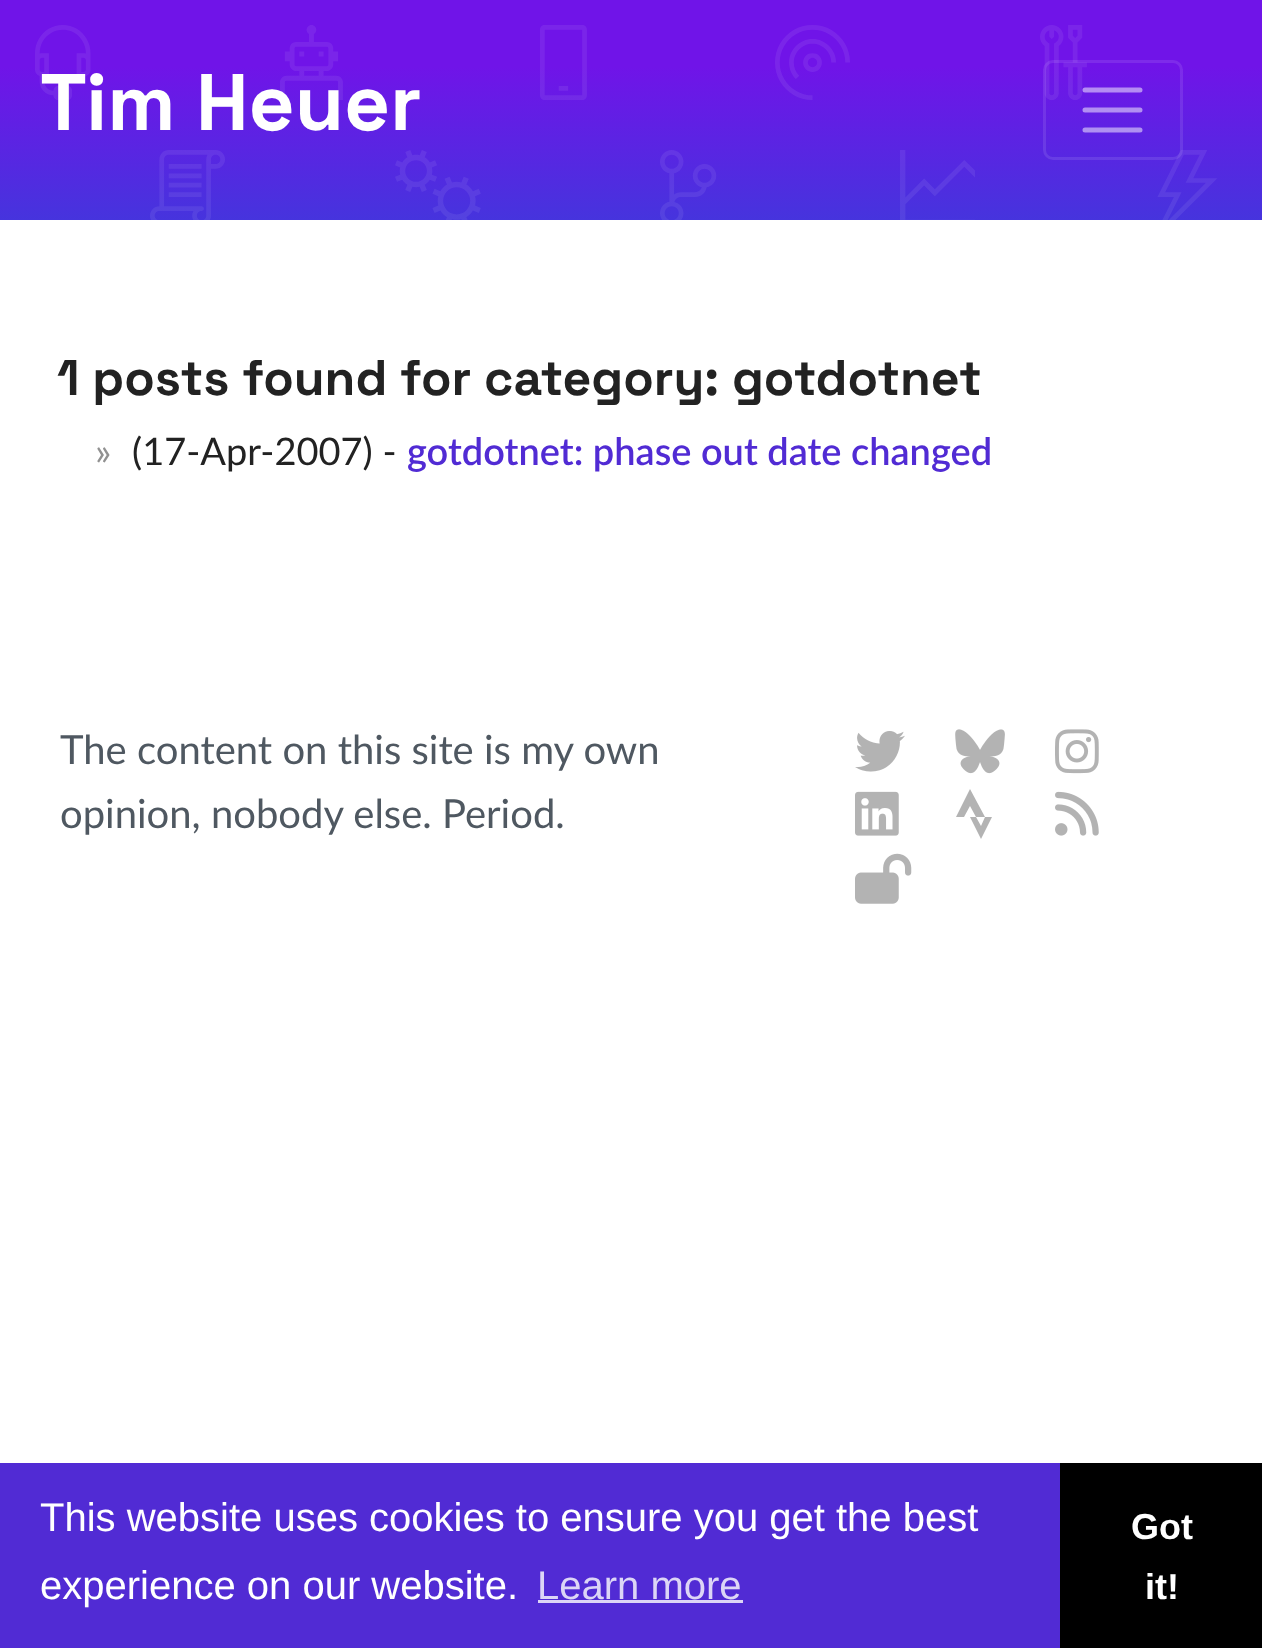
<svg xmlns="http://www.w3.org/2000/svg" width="1262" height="1648">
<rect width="100%" height="100%" fill="#fff"/>
<image x="0" y="0" width="1262" height="220" href="media/1.png"/>
<text x="40" y="130" style="font-family:Space Grotesk;font-size:80px;font-weight:300;fill:#fff">Tim Heuer</text>
<rect x="1044.5" y="61.5" width="137" height="97" rx="8.5" fill="none" stroke="#ffffff1a" stroke-width="3"/>
<path d="M1085 90h55m-55 20h55m-55 20h55" fill="none" stroke="#ffffff80" stroke-width="5" stroke-linecap="round"/>
<text x="57" y="395" style="font-family:Space Grotesk;font-size:50px;font-weight:300;fill:#222">1 posts found for category: gotdotnet</text>
<text x="95" y="465" style="font-family:Lato;font-size:38px;fill:#919191">»</text>
<text x="132" y="465" style="font-family:Lato;font-size:38px;fill:#222">(17-Apr-2007) -</text>
<text x="407" y="465" style="font-family:Lato;font-size:38px;font-weight:600;fill:#512bd4">gotdotnet: phase out date changed</text>
<text x="60" y="764" style="font-family:Lato;font-size:40px;fill:#4f5861">The content on this site is my own</text>
<text x="60" y="828" style="font-family:Lato;font-size:40px;fill:#4f5861">opinion, nobody else. Period.</text>
<image x="855" y="731" width="50" height="41" href="media/2.png"/>
<image x="955" y="729" width="50" height="45" href="media/3.png"/>
<image x="1055" y="729" width="44" height="45" href="media/4.png"/>
<image x="855" y="791" width="44" height="45" href="media/5.png"/>
<path d="M970 789l-14 28l14-28l-14 28h8l6-11l6 11h9zm15 28l-4 9l4-9l-4 9l-5-9h-6l11 22l11-22z" fill="#b3b3b3"/>
<image x="1055" y="791" width="44" height="45" href="media/6.png"/>
<image x="855" y="853" width="57" height="51" href="media/7.png"/>
<rect y="1463" width="1060" height="185" fill="#512bd4"/>
<text x="40" y="1531" style="font-family:Liberation Sans;font-size:40px;fill:#fff">This website uses cookies to ensure you get the best</text>
<text x="40" y="1599" style="font-family:Liberation Sans;font-size:40px;fill:#fff">experience on our website.</text>
<text x="537" y="1599" style="font-family:Liberation Sans;font-size:40px;fill:#dcd5f6">Learn more</text>
<rect x="538" y="1600" width="205" height="3" fill="#dcd5f6"/>
<rect x="1060" y="1463" width="202" height="185" fill="#000"/>
<text x="1131" y="1539" style="font-family:Liberation Sans;font-size:36px;font-weight:bold;fill:#fff">Got</text>
<text x="1145" y="1599" style="font-family:Liberation Sans;font-size:36px;font-weight:bold;fill:#fff">it!</text>
</svg>
